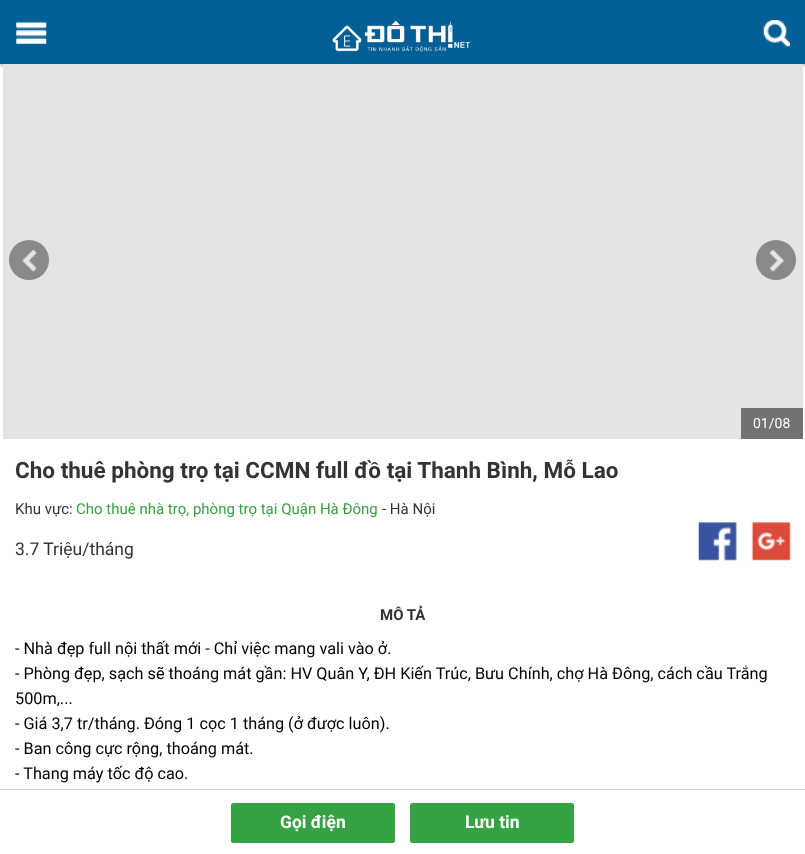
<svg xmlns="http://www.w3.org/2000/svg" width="805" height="854">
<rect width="100%" height="100%" fill="#fff"/>
<rect y="1" width="805" height="64" fill="#666666bf" filter="blur(2px)"/>
<rect width="805" height="64" fill="#015f95"/>
<image x="16" y="22" width="31" height="22" href="media/1.png"/>
<image x="332" y="20" width="138" height="32" href="media/2.png"/>
<image x="763" y="20" width="27" height="27" href="media/3.png"/>
<rect x="3" y="64" width="800" height="375" fill="#e4e4e4"/>
<circle cx="29" cy="260" r="20" fill="#898989"/>
<image x="22" y="250" width="15" height="22" href="media/4.png"/>
<circle cx="776" cy="260" r="20" fill="#898989"/>
<image x="770" y="250" width="14" height="22" href="media/5.png"/>
<rect x="741" y="408" width="62" height="31" fill="#727272"/>
<text x="753" y="428" style="font-family:Roboto;font-size:14px;fill:#fff">01/08</text>
<text x="15" y="478" style="font-family:Roboto;font-size:22.5px;font-weight:bold;fill:#333">Cho thuê phòng trọ tại CCMN full đồ tại Thanh Bình, Mỗ Lao</text>
<text x="15" y="514" style="font-family:Roboto;font-size:15px;fill:#333">Khu vực:</text>
<text x="76" y="514" style="font-family:Roboto;font-size:15px;fill:#37a244">Cho thuê nhà trọ, phòng trọ tại Quận Hà Đông</text>
<text x="382" y="514" style="font-family:Roboto;font-size:15px;fill:#333">- Hà Nội</text>
<text x="15" y="555" style="font-family:Roboto;font-size:17.5px;fill:#333">3.7 Triệu/tháng</text>
<image x="698" y="522" width="39" height="39" href="media/6.png"/>
<image x="751" y="522" width="40" height="39" href="media/7.png"/>
<text x="380" y="620" style="font-family:Roboto;font-size:15px;font-weight:bold;fill:#333">MÔ TẢ</text>
<text x="15" y="654" style="font-family:Roboto;font-size:16.25px;fill:#000">- Nhà đẹp full nội thất mới - Chỉ việc mang vali vào ở.</text>
<text x="15" y="679" style="font-family:Roboto;font-size:16.25px;fill:#000">- Phòng đẹp, sạch sẽ thoáng mát gần: HV Quân Y, ĐH Kiến Trúc, Bưu Chính, chợ Hà Đông, cách cầu Trắng</text>
<text x="15" y="704" style="font-family:Roboto;font-size:16.25px;fill:#000">500m,...</text>
<text x="15" y="729" style="font-family:Roboto;font-size:16.25px;fill:#000">- Giá 3,7 tr/tháng. Đóng 1 cọc 1 tháng (ở được luôn).</text>
<text x="15" y="754" style="font-family:Roboto;font-size:16.25px;fill:#000">- Ban công cực rộng, thoáng mát.</text>
<text x="15" y="779" style="font-family:Roboto;font-size:16.25px;fill:#000">- Thang máy tốc độ cao.</text>
<rect y="789" width="805" height="1" fill="#ccc"/>
<rect x="231" y="803" width="164" height="40" rx="2.5" fill="#37a244"/>
<text x="280" y="828" style="font-family:Roboto;font-size:17.5px;font-weight:bold;fill:#fff">Gọi điện</text>
<rect x="410" y="803" width="164" height="40" rx="2.5" fill="#37a244"/>
<text x="465" y="828" style="font-family:Roboto;font-size:17.5px;font-weight:bold;fill:#fff">Lưu tin</text>
</svg>
